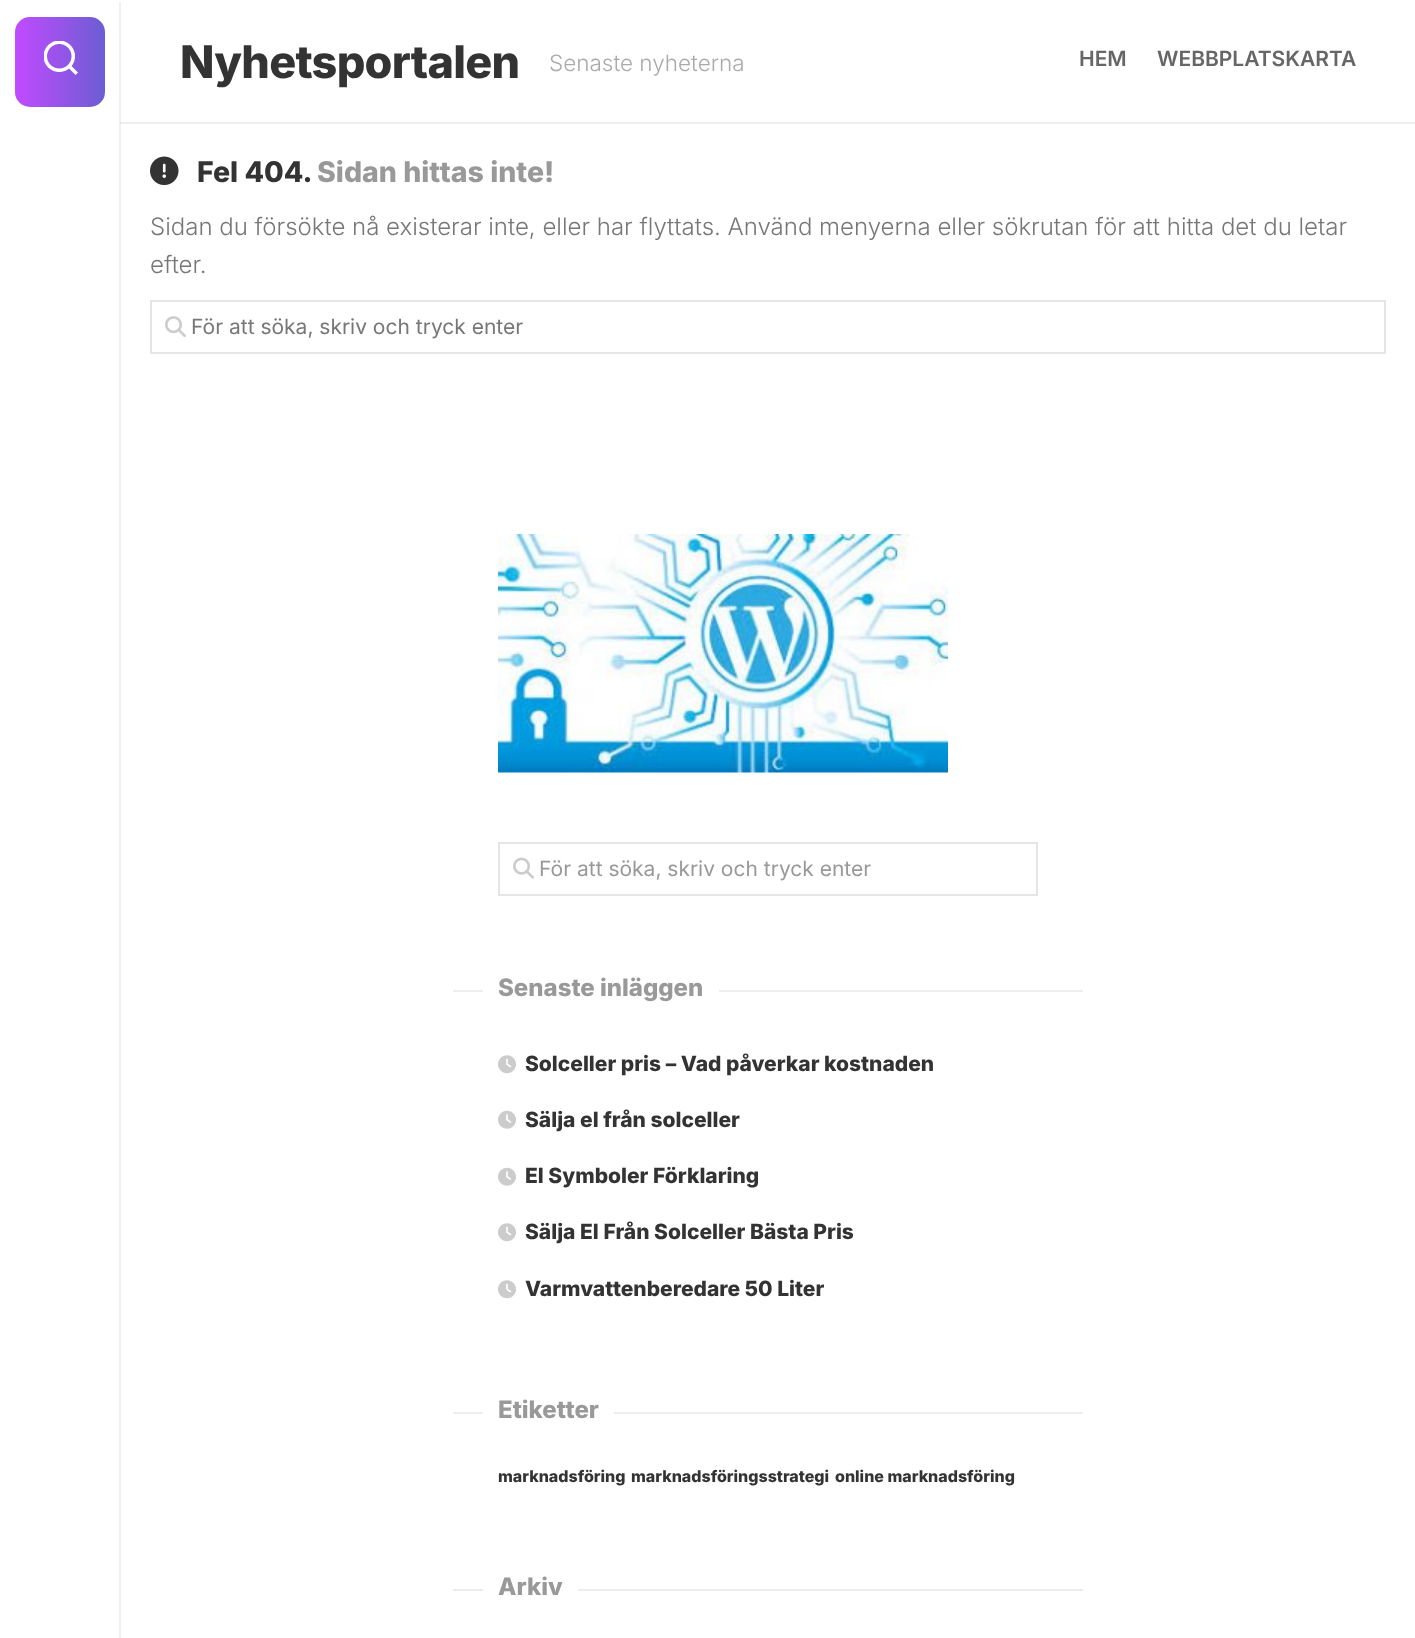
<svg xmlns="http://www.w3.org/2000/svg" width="1415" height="1638">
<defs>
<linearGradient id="g1" gradientUnits="userSpaceOnUse" x1="15" y1="62" x2="105" y2="62"><stop offset="0" stop-color="#c14bff"/><stop offset="1" stop-color="#6c5dd3"/></linearGradient>
</defs>
<rect width="100%" height="100%" fill="#fff"/>
<rect x="119" y="2" width="2" height="1636" fill="#f0f0f0"/>
<rect x="15" y="17" width="90" height="90" rx="15" fill="url(#g1)"/>
<image x="44" y="41" width="34" height="34" href="media/1.png"/>
<rect x="120" y="122" width="1295" height="2" fill="#eee"/>
<rect x="120" y="122" width="1" height="2" fill="#e0e0e0"/>
<text x="180" y="78" style="font-family:Inter;font-size:45px;font-weight:800;letter-spacing:-0.75px;fill:#333">Nyhetsportalen</text>
<text x="549" y="71" style="font-family:Inter;font-size:22.5px;font-weight:300;fill:#aaa">Senaste nyheterna</text>
<text x="1079" y="66" style="font-family:Inter;font-size:21px;font-weight:600;fill:#666">HEM</text>
<text x="1157" y="66" style="font-family:Inter;font-size:21px;font-weight:600;fill:#666">WEBBPLATSKARTA</text>
<image x="150" y="156" width="29" height="30" href="media/2.png"/>
<text x="197" y="182" style="font-family:Inter;font-size:28.5px;font-weight:800;fill:#333">Fel 404.</text>
<text x="317" y="182" style="font-family:Inter;font-size:28.5px;font-weight:800;fill:#999">Sidan hittas inte!</text>
<text x="150" y="235" style="font-family:Inter;font-size:24px;font-weight:300;fill:#777">Sidan du försökte nå existerar inte, eller har flyttats. Använd menyerna eller sökrutan för att hitta det du letar</text>
<text x="150" y="273" style="font-family:Inter;font-size:24px;font-weight:300;fill:#777">efter.</text>
<rect x="151" y="301" width="1234" height="52" fill="none" stroke="#e5e5e5" stroke-width="2"/>
<image x="165" y="316" width="21" height="21" href="media/3.png"/>
<text x="191" y="334" style="font-family:Inter;font-size:21px;fill:#777">För att söka, skriv och tryck enter</text>
<image x="498" y="534" width="450" height="239" href="media/4.png"/>
<rect x="499" y="843" width="538" height="52" fill="none" stroke="#e5e5e5" stroke-width="2"/>
<image x="513" y="857" width="21" height="22" href="media/5.png"/>
<text x="539" y="876" style="font-family:Inter;font-size:21px;fill:#999">För att söka, skriv och tryck enter</text>
<rect x="453" y="990" width="630" height="2" fill="#eee"/>
<rect x="483" y="990" width="236" height="2" fill="#fff"/>
<text x="498" y="996" style="font-family:Inter;font-size:24px;font-weight:800;fill:#999">Senaste inläggen</text>
<image x="498" y="1055" width="18" height="19" href="media/6.png"/>
<text x="525" y="1071" style="font-family:Inter;font-size:21px;font-weight:800;fill:#333">Solceller pris – Vad påverkar kostnaden</text>
<image x="498" y="1110" width="18" height="19" href="media/7.png"/>
<text x="525" y="1127" style="font-family:Inter;font-size:21px;font-weight:800;fill:#333">Sälja el från solceller</text>
<image x="498" y="1167" width="18" height="19" href="media/7.png"/>
<text x="525" y="1183" style="font-family:Inter;font-size:21px;font-weight:800;fill:#333">El Symboler Förklaring</text>
<image x="498" y="1223" width="18" height="19" href="media/6.png"/>
<text x="525" y="1239" style="font-family:Inter;font-size:21px;font-weight:800;fill:#333">Sälja El Från Solceller Bästa Pris</text>
<image x="498" y="1280" width="18" height="19" href="media/6.png"/>
<text x="525" y="1296" style="font-family:Inter;font-size:21px;font-weight:800;fill:#333">Varmvattenberedare 50 Liter</text>
<rect x="453" y="1412" width="630" height="2" fill="#eee"/>
<rect x="483" y="1412" width="131" height="2" fill="#fff"/>
<text x="498" y="1418" style="font-family:Inter;font-size:24px;font-weight:800;fill:#999">Etiketter</text>
<text x="498" y="1482" style="font-family:Inter;font-size:16px;font-weight:800;fill:#333">marknadsföring</text>
<text x="631" y="1482" style="font-family:Inter;font-size:16px;font-weight:800;fill:#333">marknadsföringsstrategi</text>
<text x="835" y="1482" style="font-family:Inter;font-size:16px;font-weight:800;fill:#333">online marknadsföring</text>
<rect x="453" y="1589" width="630" height="2" fill="#eee"/>
<rect x="483" y="1589" width="95" height="2" fill="#fff"/>
<text x="498" y="1595" style="font-family:Inter;font-size:24px;font-weight:800;fill:#999">Arkiv</text>
</svg>
